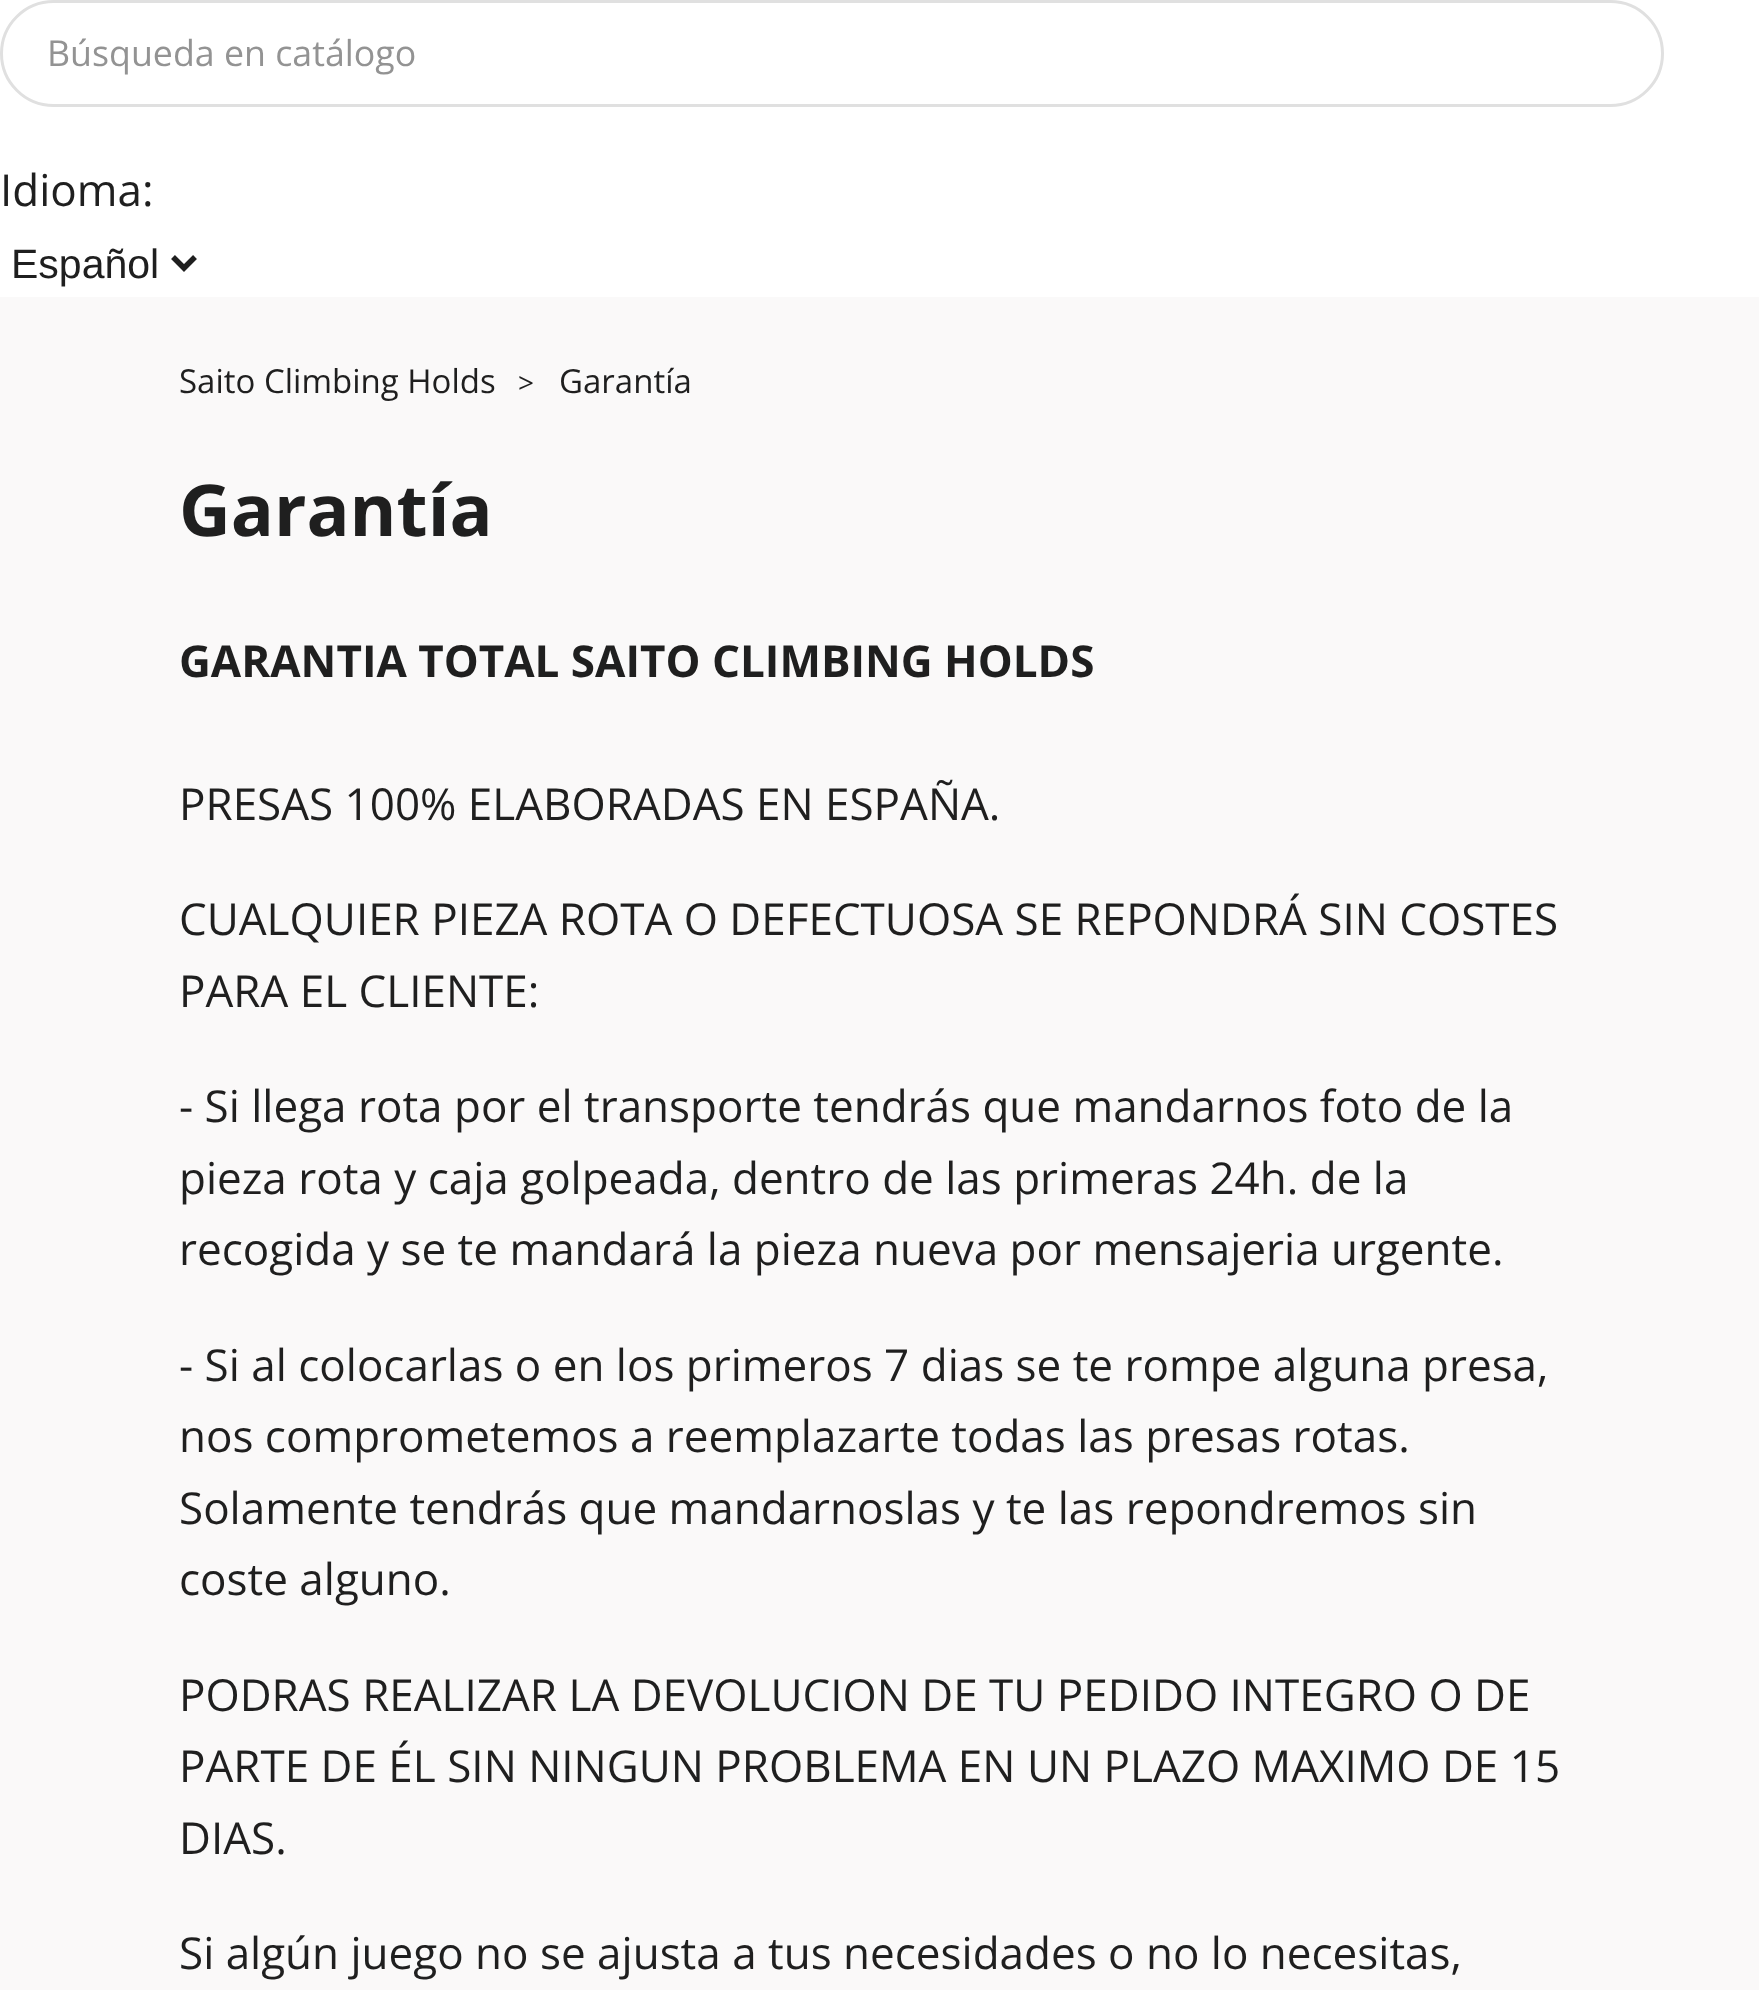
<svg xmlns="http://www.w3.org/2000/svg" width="1759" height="1990">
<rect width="100%" height="100%" fill="#faf9f9"/>
<rect width="1759" height="297" fill="#fff"/>
<rect x="1.5" y="1.5" width="1661" height="104" rx="52" fill="none" stroke="#e0e0e0" stroke-width="3"/>
<text x="47" y="66" style="font-family:Open Sans;font-size:35.75px;fill:#939393">Búsqueda en catálogo</text>
<text x="0" y="206" style="font-family:Open Sans;font-size:44px;fill:#1f1f1f">Idioma:</text>
<path d="M173 257l11 11l11-11" fill="none" stroke="#1f1f1f" stroke-width="5.5"/>
<text x="11" y="278" style="font-family:Liberation Sans;font-size:41px;fill:#1f1f1f">Español</text>
<text x="179" y="393" style="font-family:Open Sans;font-size:33px;fill:#1f1f1f">Saito Climbing Holds</text>
<text x="518" y="393" style="font-family:Open Sans;font-size:28px;fill:#1f1f1f">&gt;</text>
<text x="559" y="393" style="font-family:Open Sans;font-size:33px;fill:#1f1f1f">Garantía</text>
<text x="179" y="536" style="font-family:Open Sans;font-size:71.5px;font-weight:bold;fill:#1f1f1f">Garantía</text>
<text x="179" y="677" style="font-family:Open Sans;font-size:44px;font-weight:bold;fill:#1f1f1f">GARANTIA TOTAL SAITO CLIMBING HOLDS</text>
<text x="179" y="820" style="font-family:Open Sans;font-size:44px;fill:#1f1f1f">PRESAS 100% ELABORADAS EN ESPAÑA.</text>
<text x="179" y="935" style="font-family:Open Sans;font-size:44px;fill:#1f1f1f">CUALQUIER PIEZA ROTA O DEFECTUOSA SE REPONDRÁ SIN COSTES</text>
<text x="179" y="1007" style="font-family:Open Sans;font-size:44px;fill:#1f1f1f">PARA EL CLIENTE:</text>
<text x="179" y="1122" style="font-family:Open Sans;font-size:44px;fill:#1f1f1f">- Si llega rota por el transporte tendrás que mandarnos foto de la</text>
<text x="179" y="1194" style="font-family:Open Sans;font-size:44px;fill:#1f1f1f">pieza rota y caja golpeada, dentro de las primeras 24h. de la</text>
<text x="179" y="1265" style="font-family:Open Sans;font-size:44px;fill:#1f1f1f">recogida y se te mandará la pieza nueva por mensajeria urgente.</text>
<text x="179" y="1381" style="font-family:Open Sans;font-size:44px;fill:#1f1f1f">- Si al colocarlas o en los primeros 7 dias se te rompe alguna presa,</text>
<text x="179" y="1452" style="font-family:Open Sans;font-size:44px;fill:#1f1f1f">nos comprometemos a reemplazarte todas las presas rotas.</text>
<text x="179" y="1524" style="font-family:Open Sans;font-size:44px;fill:#1f1f1f">Solamente tendrás que mandarnoslas y te las repondremos sin</text>
<text x="179" y="1595" style="font-family:Open Sans;font-size:44px;fill:#1f1f1f">coste alguno.</text>
<text x="179" y="1711" style="font-family:Open Sans;font-size:44px;fill:#1f1f1f">PODRAS REALIZAR LA DEVOLUCION DE TU PEDIDO INTEGRO O DE</text>
<text x="179" y="1782" style="font-family:Open Sans;font-size:44px;fill:#1f1f1f">PARTE DE ÉL SIN NINGUN PROBLEMA EN UN PLAZO MAXIMO DE 15</text>
<text x="179" y="1854" style="font-family:Open Sans;font-size:44px;fill:#1f1f1f">DIAS.</text>
<text x="179" y="1969" style="font-family:Open Sans;font-size:44px;fill:#1f1f1f">Si algún juego no se ajusta a tus necesidades o no lo necesitas,</text>
</svg>
